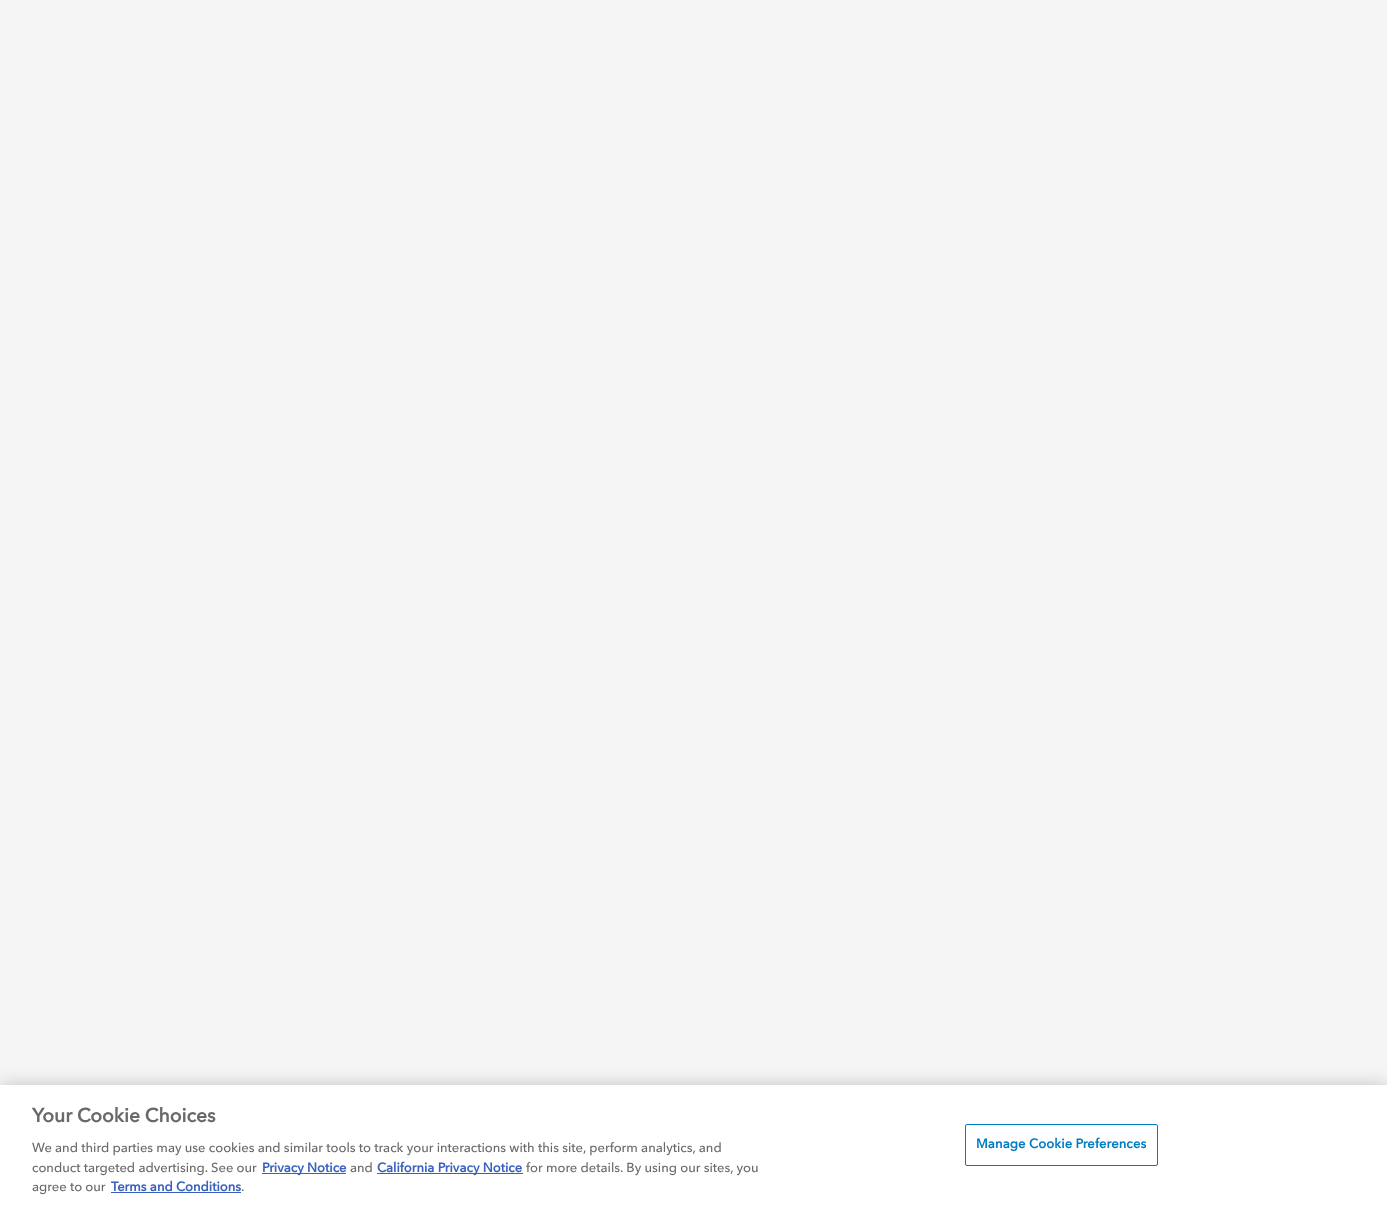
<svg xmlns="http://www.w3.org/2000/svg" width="1387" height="1208">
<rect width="100%" height="100%" fill="#f5f5f5"/>
<rect y="1085" width="1387" height="123" fill="#00000033" filter="blur(9px)"/>
<rect y="1085" width="1387" height="123" fill="#fff"/>
<text x="32" y="1122" style="font-family:Avenir Next;font-size:19.25px;font-weight:bold;fill:#696969">Your Cookie Choices</text>
<text x="32" y="1152" style="font-family:Avenir Next;font-size:13px;font-weight:500;fill:#696969">We and third parties may use cookies and similar tools to track your interactions with this site, perform analytics, and</text>
<text x="32" y="1172" style="font-family:Avenir Next;font-size:13px;font-weight:500;fill:#696969">conduct targeted advertising. See our</text>
<rect x="262" y="1173" width="84" height="1" fill="#3860be"/>
<text x="262" y="1172" style="font-family:Avenir Next;font-size:13px;font-weight:bold;fill:#3860be">Privacy Notice</text>
<text x="350" y="1172" style="font-family:Avenir Next;font-size:13px;font-weight:500;fill:#696969">and</text>
<rect x="377" y="1173" width="146" height="1" fill="#3860be"/>
<text x="377" y="1172" style="font-family:Avenir Next;font-size:13px;font-weight:bold;fill:#3860be">California Privacy Notice</text>
<text x="526" y="1172" style="font-family:Avenir Next;font-size:13px;font-weight:500;fill:#696969">for more details. By using our sites, you</text>
<text x="32" y="1191" style="font-family:Avenir Next;font-size:13px;font-weight:500;fill:#696969">agree to our</text>
<text x="111" y="1191" style="font-family:Avenir Next;font-size:13px;font-weight:bold;fill:#3860be">Terms and Conditions</text>
<rect x="111" y="1192" width="130" height="1" fill="#3860be"/>
<text x="241" y="1191" style="font-family:Avenir Next;font-size:13px;font-weight:500;fill:#696969">.</text>
<rect x="965.5" y="1124.5" width="192" height="41" rx="1.5" fill="none" stroke="#007cc0"/>
<text x="976" y="1148" style="font-family:Avenir Next;font-size:13px;font-weight:bold;letter-spacing:0.1px;fill:#007cc0">Manage Cookie Preferences</text>
</svg>
